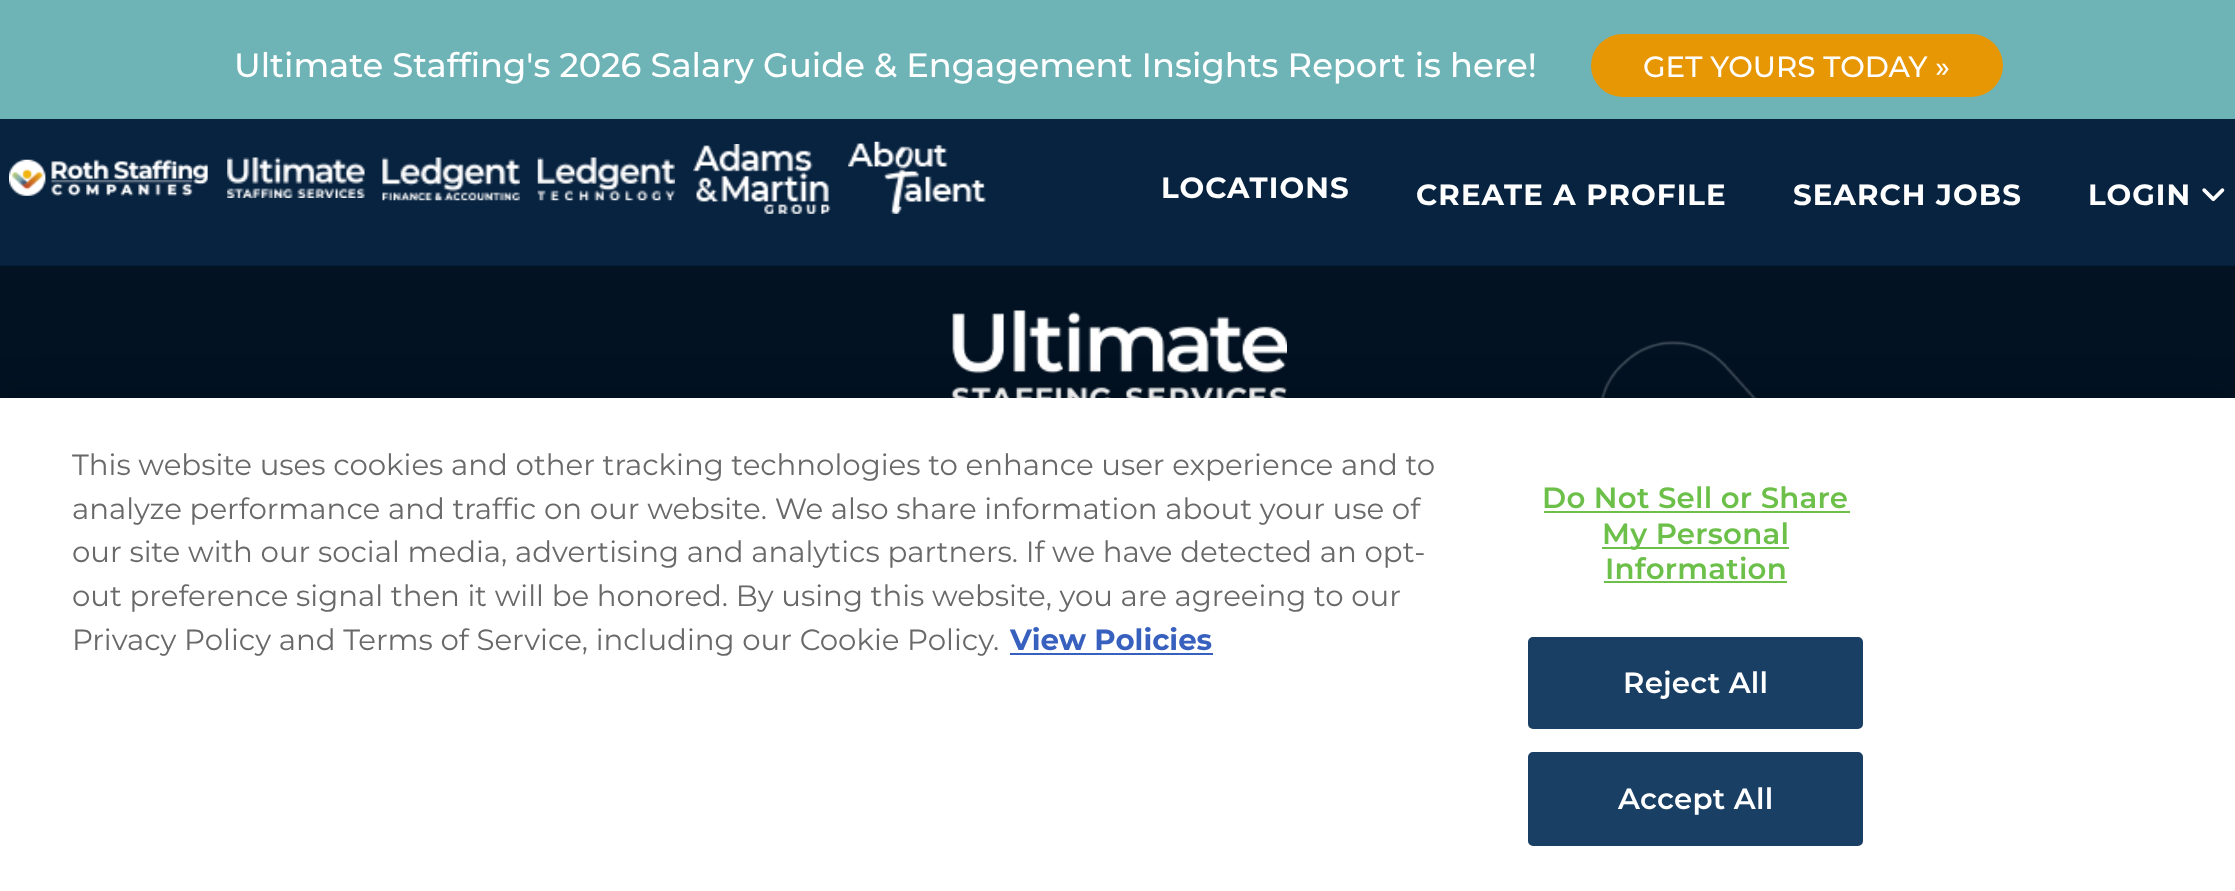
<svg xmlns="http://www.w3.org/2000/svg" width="2235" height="891">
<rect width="100%" height="100%" fill="#082340"/>
<rect width="2235" height="119" fill="#6eb3b5"/>
<text x="234" y="77" style="font-family:Montserrat;font-size:33.75px;font-weight:500;fill:#fff">Ultimate Staffing's 2026 Salary Guide &amp; Engagement Insights Report is here!</text>
<rect x="1591" y="34" width="412" height="63" rx="31.5" fill="#e79604"/>
<text x="1643" y="77" style="font-family:Montserrat;font-size:29.25px;font-weight:500;fill:#fff">GET YOURS TODAY »</text>
<image x="9" y="159" width="199" height="37" href="media/1.png"/>
<image x="227" y="157" width="138" height="41" href="media/2.png"/>
<image x="382" y="157" width="138" height="44" href="media/3.png"/>
<image x="537" y="157" width="138" height="44" href="media/4.png"/>
<image x="693" y="144" width="138" height="70" href="media/5.png"/>
<image x="848" y="141" width="138" height="73" href="media/6.png"/>
<text x="1161" y="198" style="font-family:Montserrat;font-size:29.25px;font-weight:bold;letter-spacing:1.1px;fill:#fff">LOCATIONS</text>
<text x="1416" y="205" style="font-family:Montserrat;font-size:29.25px;font-weight:bold;letter-spacing:1.1px;fill:#fff">CREATE A PROFILE</text>
<text x="1793" y="205" style="font-family:Montserrat;font-size:29.25px;font-weight:bold;letter-spacing:1.1px;fill:#fff">SEARCH JOBS</text>
<text x="2088" y="205" style="font-family:Montserrat;font-size:29.25px;font-weight:bold;letter-spacing:1.1px;fill:#fff">LOGIN</text>
<image x="2202" y="188" width="23" height="14" href="media/7.png"/>
<image x="0" y="265" width="2235" height="133" href="media/8.png"/>
<image x="951" y="310" width="336" height="88" href="media/9.png"/>
<rect y="398" width="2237" height="493" fill="#00000033" filter="blur(20px)"/>
<rect y="398" width="2235" height="493" fill="#fff"/>
<text x="72" y="475" style="font-family:Montserrat;font-size:29.25px;fill:#696969">This website uses cookies and other tracking technologies to enhance user experience and to</text>
<text x="72" y="519" style="font-family:Montserrat;font-size:29.25px;fill:#696969">analyze performance and traffic on our website. We also share information about your use of</text>
<text x="72" y="562" style="font-family:Montserrat;font-size:29.25px;fill:#696969">our site with our social media, advertising and analytics partners. If we have detected an opt-</text>
<text x="72" y="606" style="font-family:Montserrat;font-size:29.25px;fill:#696969">out preference signal then it will be honored. By using this website, you are agreeing to our</text>
<text x="72" y="650" style="font-family:Montserrat;font-size:29.25px;fill:#696969">Privacy Policy and Terms of Service, including our Cookie Policy.</text>
<text x="1010" y="650" style="font-family:Montserrat;font-size:29.25px;font-weight:bold;fill:#3860be">View Policies</text>
<rect x="1010" y="653" width="203" height="2" fill="#3860be"/>
<text x="1542" y="508" style="font-family:Montserrat;font-size:29.25px;font-weight:600;letter-spacing:0.25px;fill:#6cc04a">Do Not Sell or Share</text>
<rect x="1544" y="511" width="306" height="2" fill="#6cc04a"/>
<rect x="1602" y="547" width="187" height="2" fill="#6cc04a"/>
<text x="1602" y="544" style="font-family:Montserrat;font-size:29.25px;font-weight:600;letter-spacing:0.25px;fill:#6cc04a">My Personal</text>
<text x="1605" y="579" style="font-family:Montserrat;font-size:29.25px;font-weight:600;letter-spacing:0.25px;fill:#6cc04a">Information</text>
<rect x="1604" y="581" width="183" height="2" fill="#6cc04a"/>
<rect x="1529" y="638" width="333" height="90" rx="4" fill="#193f65" stroke="#193f65" stroke-width="2"/>
<text x="1623" y="693" style="font-family:Montserrat;font-size:29.25px;font-weight:600;letter-spacing:0.25px;fill:#fff">Reject All</text>
<rect x="1529" y="753" width="333" height="92" rx="4" fill="#193f65" stroke="#193f65" stroke-width="2"/>
<text x="1618" y="809" style="font-family:Montserrat;font-size:29.25px;font-weight:600;letter-spacing:0.25px;fill:#fff">Accept All</text>
</svg>
